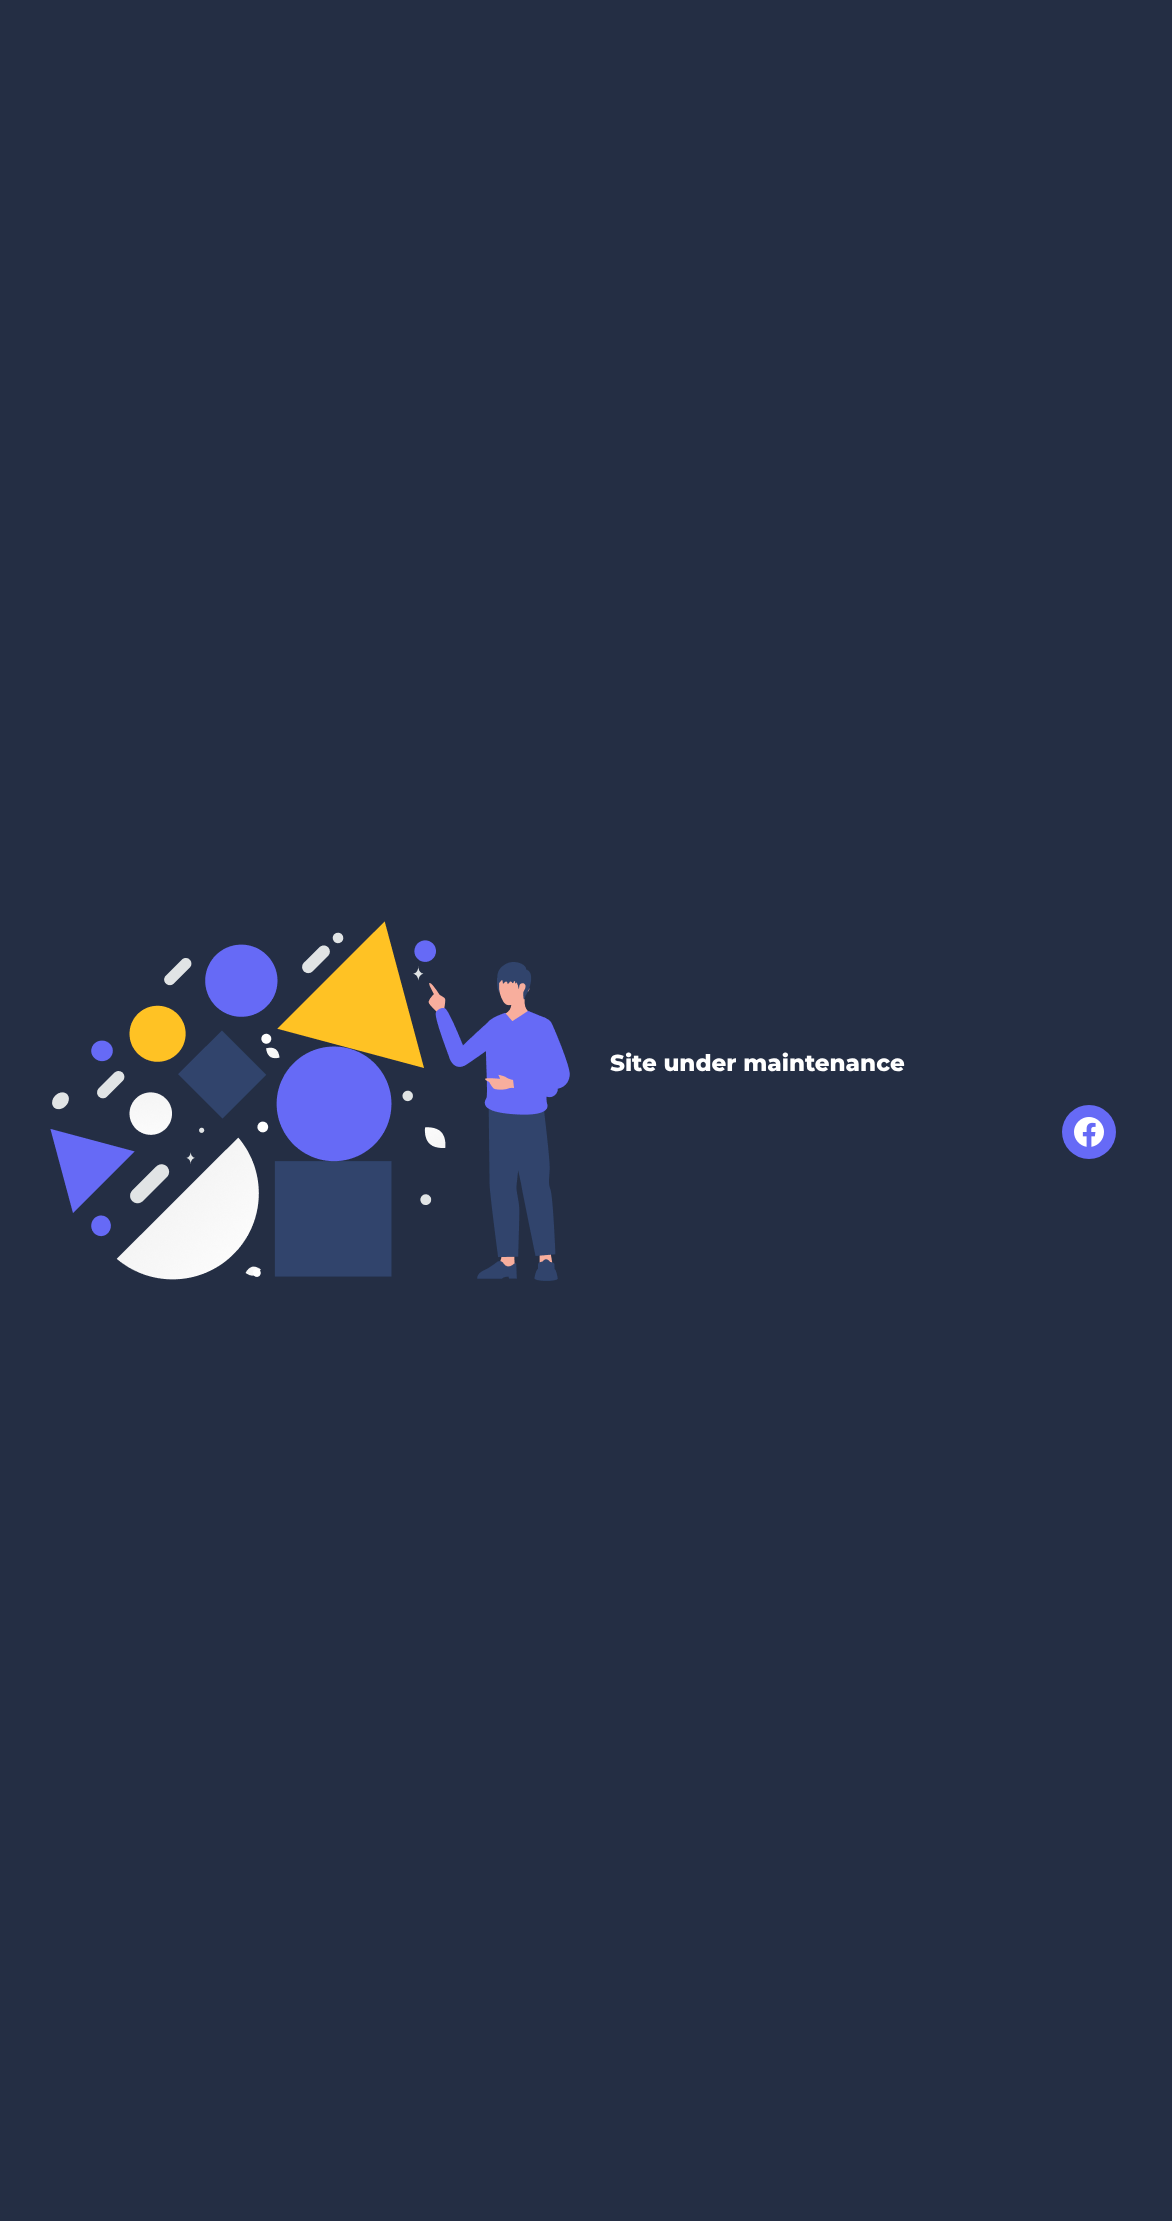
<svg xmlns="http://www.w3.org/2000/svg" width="1172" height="2221">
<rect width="100%" height="100%" fill="#242e44"/>
<image x="50" y="921" width="520" height="360" href="media/1.png"/>
<text x="610" y="1071" style="font-family:Montserrat;font-size:23px;font-weight:800;fill:#fff">Site under maintenance</text>
<circle cx="1089" cy="1132" r="27" fill="#666af6"/>
<image x="1074" y="1117" width="30" height="30" href="media/2.png"/>
</svg>
